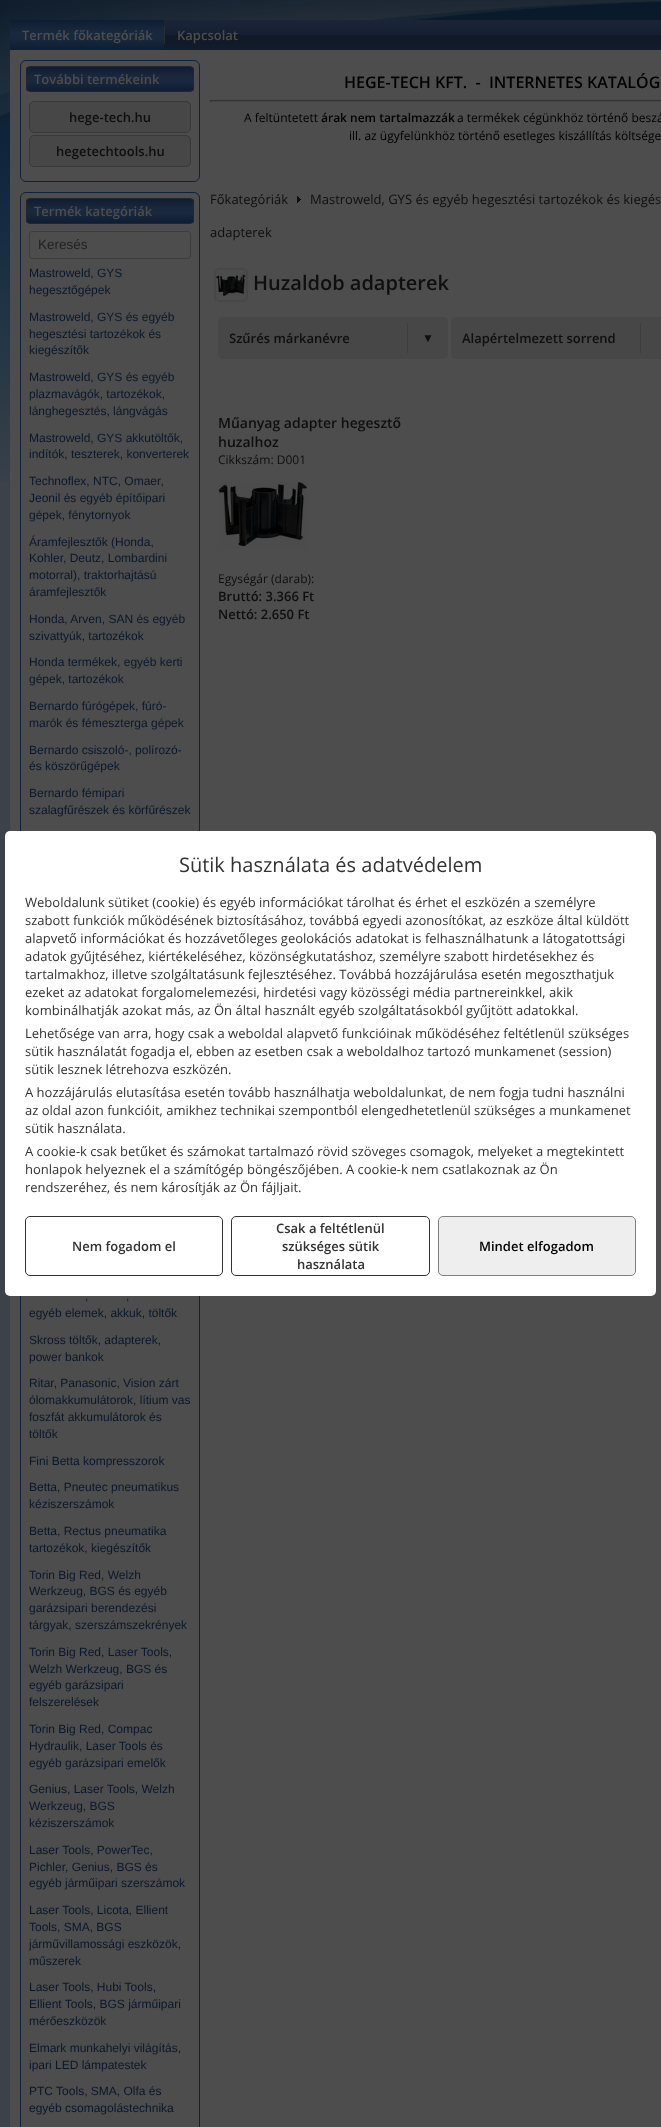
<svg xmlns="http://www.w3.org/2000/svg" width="661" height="2127">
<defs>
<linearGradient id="g1" gradientUnits="userSpaceOnUse" x1="331" y1="500" x2="331" y2="0"><stop offset="0" stop-color="#3b4249"/><stop offset="0.2" stop-color="#2d3a46"/><stop offset="0.4" stop-color="#203244"/><stop offset="0.6" stop-color="#122941"/><stop offset="1" stop-color="#09192a"/></linearGradient>
<linearGradient id="g2" gradientUnits="userSpaceOnUse" x1="510" y1="20" x2="510" y2="50"><stop offset="0" stop-color="#1b2538"/><stop offset="0.49" stop-color="#151f31"/><stop offset="0.5" stop-color="#111826"/><stop offset="1" stop-color="#131c2c"/></linearGradient>
<linearGradient id="g3" gradientUnits="userSpaceOnUse" x1="87" y1="20" x2="87" y2="50"><stop offset="0" stop-color="#0f1d32"/><stop offset="0.4" stop-color="#1a283e"/><stop offset="0.6" stop-color="#1a283e"/><stop offset="1" stop-color="#0f1d32"/></linearGradient>
<clipPath id="clip1"><rect x="26" y="66" width="168" height="26" rx="4"/></clipPath>
<linearGradient id="g4" gradientUnits="userSpaceOnUse" x1="110" y1="67" x2="110" y2="91"><stop offset="0" stop-color="#0f1c32"/><stop offset="0.4" stop-color="#1a283e"/><stop offset="0.6" stop-color="#1a283e"/><stop offset="1" stop-color="#0f1c32"/></linearGradient>
<clipPath id="clip2"><rect x="26" y="198" width="168" height="26" rx="4"/></clipPath>
<linearGradient id="g5" gradientUnits="userSpaceOnUse" x1="110" y1="199" x2="110" y2="223"><stop offset="0" stop-color="#0f1c32"/><stop offset="0.4" stop-color="#1a283e"/><stop offset="0.6" stop-color="#1a283e"/><stop offset="1" stop-color="#0f1c32"/></linearGradient>
</defs>
<rect width="100%" height="100%" fill="#3b4249"/>
<rect width="661" height="482" fill="url(#g1)"/>
<image x="0" y="0" width="661" height="117" href="media/1.png"/>
<rect x="10" y="50" width="651" height="2077" fill="#4d4d4d"/>
<rect x="164" y="20" width="497" height="30" fill="url(#g2)"/>
<rect x="164" y="26" width="1" height="18" fill="#262d35"/>
<rect x="10" y="20" width="154" height="30" fill="url(#g3)"/>
<text x="22" y="40" style="font-family:Open Sans;font-size:13px;font-weight:600;fill:#4d4d4d">Termék főkategóriák</text>
<text x="177" y="40" style="font-family:Open Sans;font-size:13px;font-weight:600;fill:#4d4d4d">Kapcsolat</text>
<rect x="20.5" y="60.5" width="179" height="121" rx="5.5" fill="none" stroke="#11213b"/>
<g clip-path="url(#clip1)">
<rect x="26" y="67" width="168" height="24" fill="url(#g4)"/>
</g>
<rect x="26.5" y="66.5" width="167" height="25" rx="3.5" fill="none" stroke="#1f2730"/>
<text x="34" y="84" style="font-family:Open Sans;font-size:13px;font-weight:600;fill:#4d4d4d">További termékeink</text>
<rect x="29.5" y="101.5" width="161" height="31" rx="4.5" fill="#474747" stroke="#383838"/>
<text x="69" y="122" style="font-family:Open Sans;font-size:13px;font-weight:600;fill:#0f0f0f">hege-tech.hu</text>
<rect x="29.5" y="135.5" width="161" height="31" rx="4.5" fill="#474747" stroke="#383838"/>
<text x="56" y="156" style="font-family:Open Sans;font-size:13px;font-weight:600;fill:#0f0f0f">hegetechtools.hu</text>
<rect x="20.5" y="192.5" width="179" height="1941" rx="5.5" fill="none" stroke="#11213b"/>
<g clip-path="url(#clip2)">
<rect x="26" y="199" width="168" height="24" fill="url(#g5)"/>
</g>
<rect x="26.5" y="198.5" width="167" height="25" rx="3.5" fill="none" stroke="#1f2730"/>
<text x="34" y="216" style="font-family:Open Sans;font-size:13px;font-weight:600;fill:#4d4d4d">Termék kategóriák</text>
<rect x="29.5" y="231.5" width="161" height="27" rx="2.5" fill="none" stroke="#3d3d3d"/>
<text x="38" y="249" style="font-family:Liberation Sans;font-size:13.5px;fill:#232323">Keresés</text>
<text x="29" y="277" style="font-family:Liberation Sans;font-size:12px;fill:#0b182b">Mastroweld, GYS</text>
<text x="29" y="294" style="font-family:Liberation Sans;font-size:12px;fill:#0b182b">hegesztőgépek</text>
<text x="29" y="321" style="font-family:Liberation Sans;font-size:12px;fill:#0b182b">Mastroweld, GYS és egyéb</text>
<text x="29" y="338" style="font-family:Liberation Sans;font-size:12px;fill:#0b182b">hegesztési tartozékok és</text>
<text x="29" y="354" style="font-family:Liberation Sans;font-size:12px;fill:#0b182b">kiegészítők</text>
<text x="29" y="381" style="font-family:Liberation Sans;font-size:12px;fill:#0b182b">Mastroweld, GYS és egyéb</text>
<text x="29" y="398" style="font-family:Liberation Sans;font-size:12px;fill:#0b182b">plazmavágók, tartozékok,</text>
<text x="29" y="415" style="font-family:Liberation Sans;font-size:12px;fill:#0b182b">lánghegesztés, lángvágás</text>
<text x="29" y="442" style="font-family:Liberation Sans;font-size:12px;fill:#0b182b">Mastroweld, GYS akkutöltők,</text>
<text x="29" y="458" style="font-family:Liberation Sans;font-size:12px;fill:#0b182b">indítók, teszterek, konverterek</text>
<text x="29" y="485" style="font-family:Liberation Sans;font-size:12px;fill:#0b182b">Technoflex, NTC, Omaer,</text>
<text x="29" y="502" style="font-family:Liberation Sans;font-size:12px;fill:#0b182b">Jeonil és egyéb építőipari</text>
<text x="29" y="519" style="font-family:Liberation Sans;font-size:12px;fill:#0b182b">gépek, fénytornyok</text>
<text x="29" y="546" style="font-family:Liberation Sans;font-size:12px;fill:#0b182b">Áramfejlesztők (Honda,</text>
<text x="29" y="562" style="font-family:Liberation Sans;font-size:12px;fill:#0b182b">Kohler, Deutz, Lombardini</text>
<text x="29" y="579" style="font-family:Liberation Sans;font-size:12px;fill:#0b182b">motorral), traktorhajtású</text>
<text x="29" y="596" style="font-family:Liberation Sans;font-size:12px;fill:#0b182b">áramfejlesztők</text>
<text x="29" y="623" style="font-family:Liberation Sans;font-size:12px;fill:#0b182b">Honda, Arven, SAN és egyéb</text>
<text x="29" y="640" style="font-family:Liberation Sans;font-size:12px;fill:#0b182b">szivattyúk, tartozékok</text>
<text x="29" y="666" style="font-family:Liberation Sans;font-size:12px;fill:#0b182b">Honda termékek, egyéb kerti</text>
<text x="29" y="683" style="font-family:Liberation Sans;font-size:12px;fill:#0b182b">gépek, tartozékok</text>
<text x="29" y="710" style="font-family:Liberation Sans;font-size:12px;fill:#0b182b">Bernardo fúrógépek, fúró-</text>
<text x="29" y="727" style="font-family:Liberation Sans;font-size:12px;fill:#0b182b">marók és fémeszterga gépek</text>
<text x="29" y="754" style="font-family:Liberation Sans;font-size:12px;fill:#0b182b">Bernardo csiszoló-, polírozó-</text>
<text x="29" y="770" style="font-family:Liberation Sans;font-size:12px;fill:#0b182b">és köszörűgépek</text>
<text x="29" y="797" style="font-family:Liberation Sans;font-size:12px;fill:#0b182b">Bernardo fémipari</text>
<text x="29" y="814" style="font-family:Liberation Sans;font-size:12px;fill:#0b182b">szalagfűrészek és körfűrészek</text>
<text x="85" y="1300" style="font-family:Liberation Sans;font-size:12px;fill:#0b182b">,</text>
<text x="126" y="1300" style="font-family:Liberation Sans;font-size:12px;fill:#0b182b">,</text>
<text x="29" y="1317" style="font-family:Liberation Sans;font-size:12px;fill:#0b182b">egyéb elemek, akkuk, töltők</text>
<text x="29" y="1344" style="font-family:Liberation Sans;font-size:12px;fill:#0b182b">Skross töltők, adapterek,</text>
<text x="29" y="1361" style="font-family:Liberation Sans;font-size:12px;fill:#0b182b">power bankok</text>
<text x="29" y="1387" style="font-family:Liberation Sans;font-size:12px;fill:#0b182b">Ritar, Panasonic, Vision zárt</text>
<text x="29" y="1404" style="font-family:Liberation Sans;font-size:12px;fill:#0b182b">ólomakkumulátorok, lítium vas</text>
<text x="29" y="1421" style="font-family:Liberation Sans;font-size:12px;fill:#0b182b">foszfát akkumulátorok és</text>
<text x="29" y="1438" style="font-family:Liberation Sans;font-size:12px;fill:#0b182b">töltők</text>
<text x="29" y="1465" style="font-family:Liberation Sans;font-size:12px;fill:#0b182b">Fini Betta kompresszorok</text>
<text x="29" y="1491" style="font-family:Liberation Sans;font-size:12px;fill:#0b182b">Betta, Pneutec pneumatikus</text>
<text x="29" y="1508" style="font-family:Liberation Sans;font-size:12px;fill:#0b182b">kéziszerszámok</text>
<text x="29" y="1535" style="font-family:Liberation Sans;font-size:12px;fill:#0b182b">Betta, Rectus pneumatika</text>
<text x="29" y="1552" style="font-family:Liberation Sans;font-size:12px;fill:#0b182b">tartozékok, kiegészítők</text>
<text x="29" y="1579" style="font-family:Liberation Sans;font-size:12px;fill:#0b182b">Torin Big Red, Welzh</text>
<text x="29" y="1595" style="font-family:Liberation Sans;font-size:12px;fill:#0b182b">Werkzeug, BGS és egyéb</text>
<text x="29" y="1612" style="font-family:Liberation Sans;font-size:12px;fill:#0b182b">garázsipari berendezési</text>
<text x="29" y="1629" style="font-family:Liberation Sans;font-size:12px;fill:#0b182b">tárgyak, szerszámszekrények</text>
<text x="29" y="1656" style="font-family:Liberation Sans;font-size:12px;fill:#0b182b">Torin Big Red, Laser Tools,</text>
<text x="29" y="1673" style="font-family:Liberation Sans;font-size:12px;fill:#0b182b">Welzh Werkzeug, BGS és</text>
<text x="29" y="1689" style="font-family:Liberation Sans;font-size:12px;fill:#0b182b">egyéb garázsipari</text>
<text x="29" y="1706" style="font-family:Liberation Sans;font-size:12px;fill:#0b182b">felszerelések</text>
<text x="29" y="1733" style="font-family:Liberation Sans;font-size:12px;fill:#0b182b">Torin Big Red, Compac</text>
<text x="29" y="1750" style="font-family:Liberation Sans;font-size:12px;fill:#0b182b">Hydraulik, Laser Tools és</text>
<text x="29" y="1767" style="font-family:Liberation Sans;font-size:12px;fill:#0b182b">egyéb garázsipari emelők</text>
<text x="29" y="1793" style="font-family:Liberation Sans;font-size:12px;fill:#0b182b">Genius, Laser Tools, Welzh</text>
<text x="29" y="1810" style="font-family:Liberation Sans;font-size:12px;fill:#0b182b">Werkzeug, BGS</text>
<text x="29" y="1827" style="font-family:Liberation Sans;font-size:12px;fill:#0b182b">kéziszerszámok</text>
<text x="29" y="1854" style="font-family:Liberation Sans;font-size:12px;fill:#0b182b">Laser Tools, PowerTec,</text>
<text x="29" y="1871" style="font-family:Liberation Sans;font-size:12px;fill:#0b182b">Pichler, Genius, BGS és</text>
<text x="29" y="1887" style="font-family:Liberation Sans;font-size:12px;fill:#0b182b">egyéb járműipari szerszámok</text>
<text x="29" y="1914" style="font-family:Liberation Sans;font-size:12px;fill:#0b182b">Laser Tools, Licota, Ellient</text>
<text x="29" y="1931" style="font-family:Liberation Sans;font-size:12px;fill:#0b182b">Tools, SMA, BGS</text>
<text x="29" y="1948" style="font-family:Liberation Sans;font-size:12px;fill:#0b182b">járművillamossági eszközök,</text>
<text x="29" y="1965" style="font-family:Liberation Sans;font-size:12px;fill:#0b182b">műszerek</text>
<text x="29" y="1991" style="font-family:Liberation Sans;font-size:12px;fill:#0b182b">Laser Tools, Hubi Tools,</text>
<text x="29" y="2008" style="font-family:Liberation Sans;font-size:12px;fill:#0b182b">Ellient Tools, BGS járműipari</text>
<text x="29" y="2025" style="font-family:Liberation Sans;font-size:12px;fill:#0b182b">mérőeszközök</text>
<text x="29" y="2052" style="font-family:Liberation Sans;font-size:12px;fill:#0b182b">Elmark munkahelyi világítás,</text>
<text x="29" y="2069" style="font-family:Liberation Sans;font-size:12px;fill:#0b182b">ipari LED lámpatestek</text>
<text x="29" y="2095" style="font-family:Liberation Sans;font-size:12px;fill:#0b182b">PTC Tools, SMA, Olfa és</text>
<text x="29" y="2112" style="font-family:Liberation Sans;font-size:12px;fill:#0b182b">egyéb csomagolástechnika</text>
<text x="344" y="88" style="font-family:Open Sans;font-size:16px;font-weight:600;fill:#000" xml:space="preserve">HEGE-TECH KFT.  -  INTERNETES KATALÓG</text>
<rect x="210" y="100" width="451" height="1" fill="#303030"/>
<rect x="210" y="101" width="451" height="1" fill="#474747"/>
<rect x="210" y="100" width="1" height="2" fill="#303030"/>
<text x="244" y="122" style="font-family:Open Sans;font-size:12px;fill:#000">A feltüntetett</text>
<text x="321" y="122" style="font-family:Open Sans;font-size:12px;font-weight:600;fill:#000">árak nem tartalmazzák</text>
<text x="457" y="122" style="font-family:Open Sans;font-size:12px;fill:#000">a termékek cégünkhöz történő beszá</text>
<text x="349" y="140" style="font-family:Open Sans;font-size:12px;fill:#000">ill. az ügyfelünkhöz történő esetleges kiszállítás költsége</text>
<text x="210" y="204" style="font-family:Open Sans;font-size:13px;fill:#0f0f0f">Főkategóriák</text>
<image x="297" y="196" width="4" height="7" href="media/2.png"/>
<text x="310" y="204" style="font-family:Open Sans;font-size:13px;fill:#0f0f0f">Mastroweld, GYS és egyéb hegesztési tartozékok és kiegés</text>
<text x="210" y="237" style="font-family:Open Sans;font-size:13px;fill:#0f0f0f">adapterek</text>
<image x="216" y="272" width="30" height="24" href="media/3.png"/>
<rect x="215" y="269" width="32" height="32" rx="5" fill="none" stroke="#474747" stroke-width="2"/>
<text x="253" y="290" style="font-family:Open Sans;font-size:20px;font-weight:600;fill:#0f0f0f">Huzaldob adapterek</text>
<rect x="218" y="317" width="230" height="42" rx="5" fill="#474747"/>
<text x="229" y="343" style="font-family:Open Sans;font-size:13px;font-weight:600;fill:#0f0f0f">Szűrés márkanévre</text>
<rect x="407" y="323" width="1" height="30" fill="#3d3d3d"/>
<text x="422" y="342" style="font-family:Liberation Serif;font-size:12px;fill:#0f0f0f">▼</text>
<rect x="451" y="317" width="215" height="42" rx="5" fill="#474747"/>
<text x="462" y="343" style="font-family:Open Sans;font-size:13px;font-weight:600;fill:#0f0f0f">Alapértelmezett sorrend</text>
<rect x="640" y="323" width="1" height="30" fill="#3d3d3d"/>
<text x="218" y="428" style="font-family:Open Sans;font-size:14px;font-weight:600;fill:#0f0f0f">Műanyag adapter hegesztő</text>
<text x="218" y="447" style="font-family:Open Sans;font-size:14px;font-weight:600;fill:#0f0f0f">huzalhoz</text>
<text x="218" y="464" style="font-family:Open Sans;font-size:12px;fill:#0f0f0f">Cikkszám: D001</text>
<image x="218" y="482" width="89" height="68" href="media/4.png"/>
<text x="218" y="583" style="font-family:Open Sans;font-size:12px;fill:#0f0f0f">Egységár (darab):</text>
<text x="218" y="601" style="font-family:Open Sans;font-size:13px;font-weight:600;fill:#0f0f0f">Bruttó: 3.366 Ft</text>
<text x="218" y="619" style="font-family:Open Sans;font-size:13px;font-weight:600;fill:#0f0f0f">Nettó: 2.650 Ft</text>
<rect x="5" y="831" width="651" height="465" rx="5" fill="#fff"/>
<text x="179" y="872" style="font-family:Open Sans;font-size:20px;fill:#333">Sütik használata és adatvédelem</text>
<text x="25" y="907" style="font-family:Open Sans;font-size:13px;fill:#333">Weboldalunk sütiket (cookie) és egyéb információkat tárolhat és érhet el eszközén a személyre</text>
<text x="25" y="925" style="font-family:Open Sans;font-size:13px;fill:#333">szabott funkciók működésének biztosításához, továbbá egyedi azonosítókat, az eszköze által küldött</text>
<text x="25" y="943" style="font-family:Open Sans;font-size:13px;fill:#333">alapvető információkat és hozzávetőleges geolokációs adatokat is felhasználhatunk a látogatottsági</text>
<text x="25" y="961" style="font-family:Open Sans;font-size:13px;fill:#333">adatok gyűjtéséhez, kiértékeléséhez, közönségkutatáshoz, személyre szabott hirdetésekhez és</text>
<text x="25" y="979" style="font-family:Open Sans;font-size:13px;fill:#333">tartalmakhoz, illetve szolgáltatásunk fejlesztéséhez. Továbbá hozzájárulása esetén megoszthatjuk</text>
<text x="25" y="997" style="font-family:Open Sans;font-size:13px;fill:#333">ezeket az adatokat forgalomelemezési, hirdetési vagy közösségi média partnereinkkel, akik</text>
<text x="25" y="1015" style="font-family:Open Sans;font-size:13px;fill:#333">kombinálhatják azokat más, az Ön által használt egyéb szolgáltatásokból gyűjtött adatokkal.</text>
<text x="25" y="1038" style="font-family:Open Sans;font-size:13px;fill:#333">Lehetősége van arra, hogy csak a weboldal alapvető funkcióinak működéséhez feltétlenül szükséges</text>
<text x="25" y="1056" style="font-family:Open Sans;font-size:13px;fill:#333">sütik használatát fogadja el, ebben az esetben csak a weboldalhoz tartozó munkamenet (session)</text>
<text x="25" y="1074" style="font-family:Open Sans;font-size:13px;fill:#333">sütik lesznek létrehozva eszközén.</text>
<text x="25" y="1097" style="font-family:Open Sans;font-size:13px;fill:#333">A hozzájárulás elutasítása esetén tovább használhatja weboldalunkat, de nem fogja tudni használni</text>
<text x="25" y="1115" style="font-family:Open Sans;font-size:13px;fill:#333">az oldal azon funkcióit, amikhez technikai szempontból elengedhetetlenül szükséges a munkamenet</text>
<text x="25" y="1133" style="font-family:Open Sans;font-size:13px;fill:#333">sütik használata.</text>
<text x="25" y="1156" style="font-family:Open Sans;font-size:13px;fill:#333">A cookie-k csak betűket és számokat tartalmazó rövid szöveges csomagok, melyeket a megtekintett</text>
<text x="25" y="1174" style="font-family:Open Sans;font-size:13px;fill:#333">honlapok helyeznek el a számítógép böngészőjében. A cookie-k nem csatlakoznak az Ön</text>
<text x="25" y="1192" style="font-family:Open Sans;font-size:13px;fill:#333">rendszeréhez, és nem károsítják az Ön fájljait.</text>
<rect x="25.5" y="1216.5" width="197" height="59" rx="4.5" fill="none" stroke="#333"/>
<text x="72" y="1251" style="font-family:Open Sans;font-size:13px;font-weight:600;fill:#333">Nem fogadom el</text>
<rect x="231.5" y="1216.5" width="198" height="59" rx="4.5" fill="none" stroke="#333"/>
<text x="276" y="1233" style="font-family:Open Sans;font-size:13px;font-weight:600;fill:#333">Csak a feltétlenül</text>
<text x="282" y="1251" style="font-family:Open Sans;font-size:13px;font-weight:600;fill:#333">szükséges sütik</text>
<text x="297" y="1269" style="font-family:Open Sans;font-size:13px;font-weight:600;fill:#333">használata</text>
<rect x="438.5" y="1216.5" width="197" height="59" rx="4.5" fill="#eee" stroke="#808080"/>
<text x="479" y="1251" style="font-family:Open Sans;font-size:13px;font-weight:600;fill:#000">Mindet elfogadom</text>
</svg>
